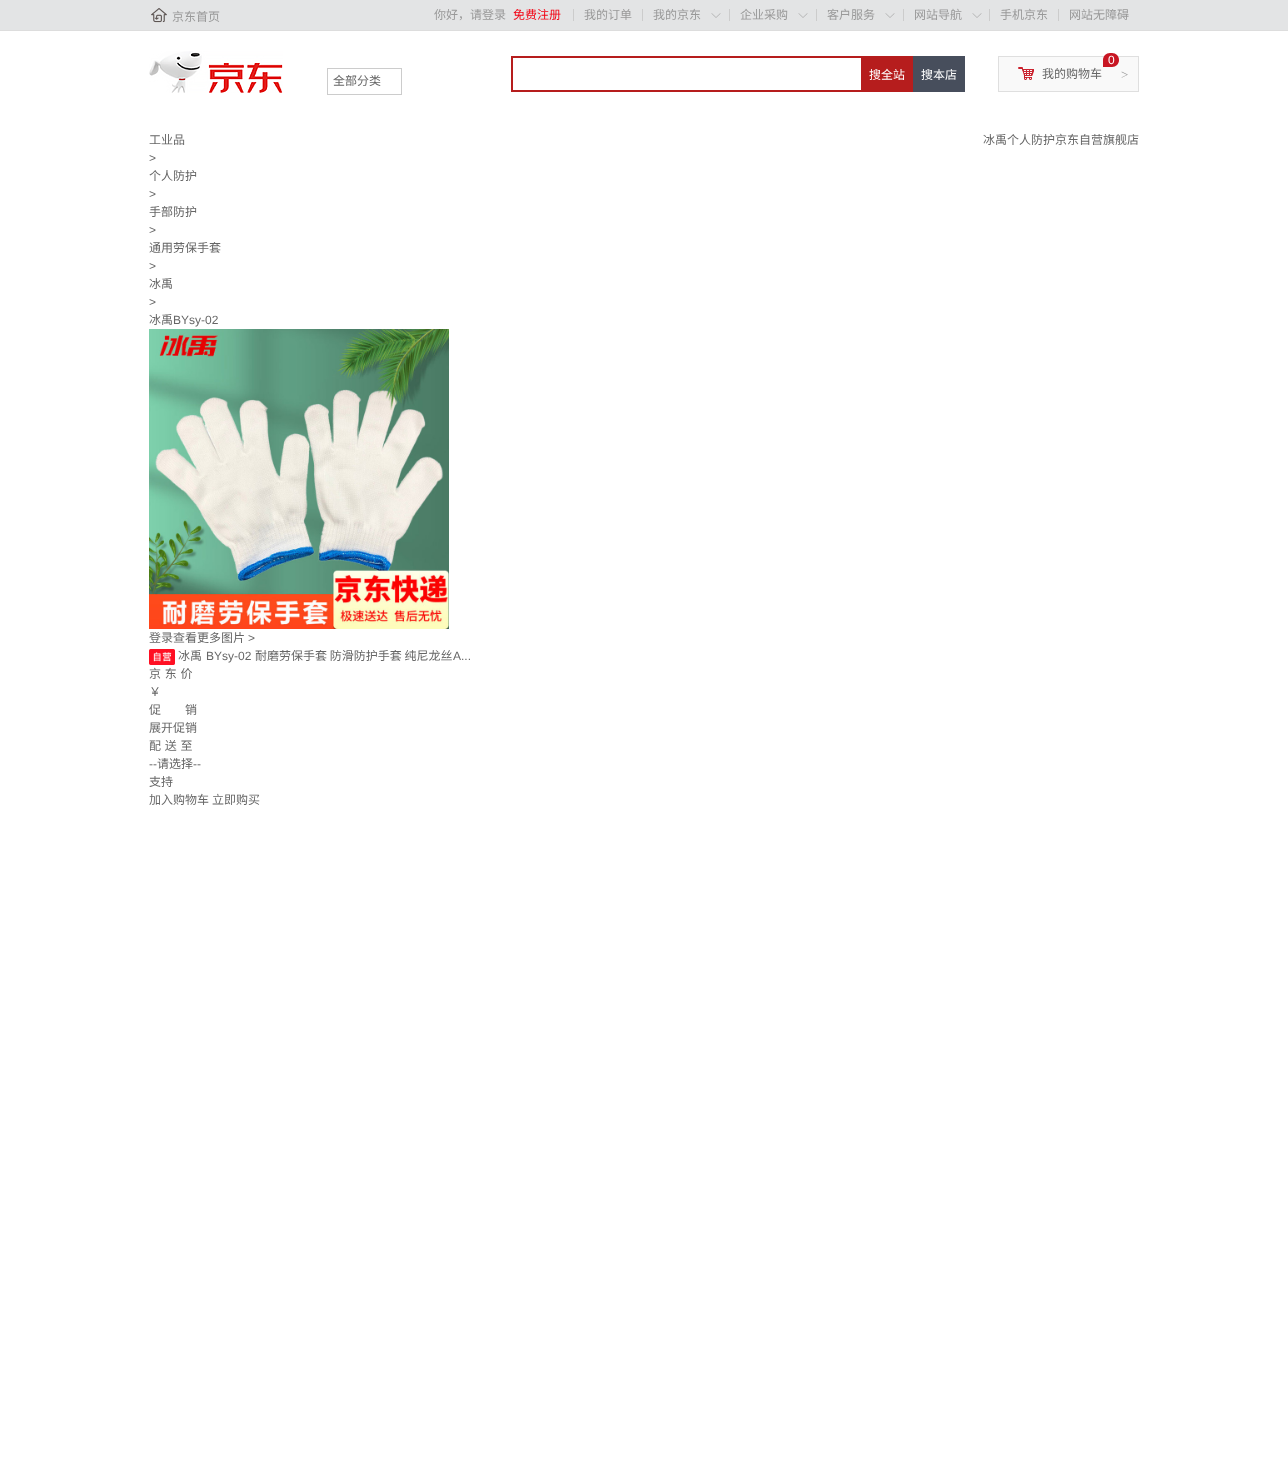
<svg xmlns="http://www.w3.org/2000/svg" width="1288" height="1467">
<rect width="100%" height="100%" fill="#fff"/>
<rect width="1288" height="30" fill="#e3e4e5"/>
<rect y="30" width="1288" height="1" fill="#ddd"/>
<image x="151" y="8" width="16" height="15" href="media/1.png"/>
<text x="172" y="21" style="font-family:Noto Sans CJK SC;font-size:12px;fill:#999">京东首页</text>
<text x="434" y="19" style="font-family:Noto Sans CJK SC;font-size:12px;fill:#999">你好，请登录</text>
<text x="513" y="19" style="font-family:Noto Sans CJK SC;font-size:12px;fill:#f30213">免费注册</text>
<rect x="573" y="9" width="1" height="12" fill="#ccc"/>
<text x="584" y="19" style="font-family:Noto Sans CJK SC;font-size:12px;fill:#999">我的订单</text>
<rect x="642" y="9" width="1" height="12" fill="#ccc"/>
<text x="653" y="19" style="font-family:Noto Sans CJK SC;font-size:12px;fill:#999">我的京东</text>
<image x="711" y="13" width="10" height="5" href="media/2.png"/>
<rect x="729" y="9" width="1" height="12" fill="#ccc"/>
<text x="740" y="19" style="font-family:Noto Sans CJK SC;font-size:12px;fill:#999">企业采购</text>
<image x="798" y="13" width="10" height="5" href="media/2.png"/>
<rect x="816" y="9" width="1" height="12" fill="#ccc"/>
<text x="827" y="19" style="font-family:Noto Sans CJK SC;font-size:12px;fill:#999">客户服务</text>
<image x="885" y="13" width="10" height="5" href="media/2.png"/>
<rect x="903" y="9" width="1" height="12" fill="#ccc"/>
<text x="914" y="19" style="font-family:Noto Sans CJK SC;font-size:12px;fill:#999">网站导航</text>
<image x="972" y="13" width="10" height="5" href="media/2.png"/>
<rect x="989" y="9" width="1" height="12" fill="#ccc"/>
<text x="1000" y="19" style="font-family:Noto Sans CJK SC;font-size:12px;fill:#999">手机京东</text>
<rect x="1058" y="9" width="1" height="12" fill="#ccc"/>
<text x="1069" y="19" style="font-family:Noto Sans CJK SC;font-size:12px;fill:#999">网站无障碍</text>
<image x="149" y="51" width="134" height="42" href="media/3.png"/>
<rect x="327.5" y="68.5" width="74" height="26" fill="none" stroke="#ccc"/>
<text x="333" y="85" style="font-family:Noto Sans CJK SC;font-size:12px;fill:#666">全部分类</text>
<rect x="511" y="56" width="350" height="2" fill="#b61d1d"/>
<rect x="511" y="90" width="350" height="2" fill="#b61d1d"/>
<rect x="511" y="56" width="2" height="36" fill="#b61d1d"/>
<rect x="861" y="56" width="52" height="36" fill="#b61d1d"/>
<text x="869" y="79" style="font-family:Noto Sans CJK SC;font-size:12px;fill:#fff">搜全站</text>
<rect x="913" y="56" width="52" height="36" fill="#474e5c"/>
<text x="921" y="79" style="font-family:Noto Sans CJK SC;font-size:12px;fill:#fff">搜本店</text>
<rect x="998.5" y="56.5" width="140" height="35" fill="#f9f9f9" stroke="#dfdfdf"/>
<path d="M1110 53h2c4 0 7 3 7 7c0 4-3 7-7 7h-9v-7c0-4 3-7 7-7z" fill="#c81623"/>
<text x="1108" y="64" style="font-family:Liberation Sans;font-size:12px;fill:#fff">0</text>
<image x="1018" y="67" width="16" height="13" href="media/4.png"/>
<text x="1042" y="78" style="font-family:Noto Sans CJK SC;font-size:12px;fill:#666">我的购物车</text>
<text x="1121" y="79" style="font-family:Liberation Serif;font-size:13px;fill:#999">&gt;</text>
<text x="149" y="144" style="font-family:Noto Sans CJK SC;font-size:12px;fill:#666">工业品</text>
<text x="149" y="162" style="font-family:Liberation Sans;font-size:12px;fill:#666">&gt;</text>
<text x="149" y="180" style="font-family:Noto Sans CJK SC;font-size:12px;fill:#666">个人防护</text>
<text x="149" y="198" style="font-family:Liberation Sans;font-size:12px;fill:#666">&gt;</text>
<text x="149" y="216" style="font-family:Noto Sans CJK SC;font-size:12px;fill:#666">手部防护</text>
<text x="149" y="234" style="font-family:Liberation Sans;font-size:12px;fill:#666">&gt;</text>
<text x="149" y="252" style="font-family:Noto Sans CJK SC;font-size:12px;fill:#666">通用劳保手套</text>
<text x="149" y="270" style="font-family:Liberation Sans;font-size:12px;fill:#666">&gt;</text>
<text x="149" y="288" style="font-family:Noto Sans CJK SC;font-size:12px;fill:#666">冰禹</text>
<text x="149" y="306" style="font-family:Liberation Sans;font-size:12px;fill:#666">&gt;</text>
<text x="149" y="324" style="font-family:Noto Sans CJK SC;font-size:12px;fill:#666">冰禹</text>
<text x="173" y="324" style="font-family:Liberation Sans;font-size:12px;fill:#666">BYsy-02</text>
<text x="983" y="144" style="font-family:Noto Sans CJK SC;font-size:12px;fill:#666">冰禹个人防护京东自营旗舰店</text>
<image x="149" y="329" width="300" height="300" href="media/5.png"/>
<text x="149" y="642" style="font-family:Noto Sans CJK SC;font-size:12px;fill:#666">登录查看更多图片</text>
<text x="248" y="642" style="font-family:Liberation Sans;font-size:12px;fill:#666">&gt;</text>
<image x="149" y="649" width="26" height="16" href="media/6.png"/>
<text x="178" y="660" style="font-family:Noto Sans CJK SC;font-size:12px;fill:#666">冰禹</text>
<text x="206" y="660" style="font-family:Liberation Sans;font-size:12px;fill:#666">BYsy-02</text>
<text x="255" y="660" style="font-family:Noto Sans CJK SC;font-size:12px;fill:#666">耐磨劳保手套 防滑防护手套 纯尼龙丝</text>
<text x="453" y="660" style="font-family:Liberation Sans;font-size:12px;fill:#666">A...</text>
<text x="149" y="678" word-spacing="1" style="font-family:Noto Sans CJK SC;font-size:12px;fill:#666">京 东 价</text>
<text x="149" y="696" style="font-family:Noto Sans CJK SC;font-size:12px;fill:#666">￥</text>
<text x="149" y="714" style="font-family:Noto Sans CJK SC;font-size:12px;fill:#666">促　　销</text>
<text x="149" y="732" style="font-family:Noto Sans CJK SC;font-size:12px;fill:#666">展开促销</text>
<text x="149" y="750" word-spacing="1" style="font-family:Noto Sans CJK SC;font-size:12px;fill:#666">配 送 至</text>
<text x="149" y="768" style="font-family:Liberation Sans;font-size:12px;fill:#666">--</text>
<text x="157" y="768" style="font-family:Noto Sans CJK SC;font-size:12px;fill:#666">请选择</text>
<text x="193" y="768" style="font-family:Liberation Sans;font-size:12px;fill:#666">--</text>
<text x="149" y="786" style="font-family:Noto Sans CJK SC;font-size:12px;fill:#666">支持</text>
<text x="149" y="804" style="font-family:Noto Sans CJK SC;font-size:12px;fill:#666">加入购物车</text>
<text x="212" y="804" style="font-family:Noto Sans CJK SC;font-size:12px;fill:#666">立即购买</text>
</svg>
